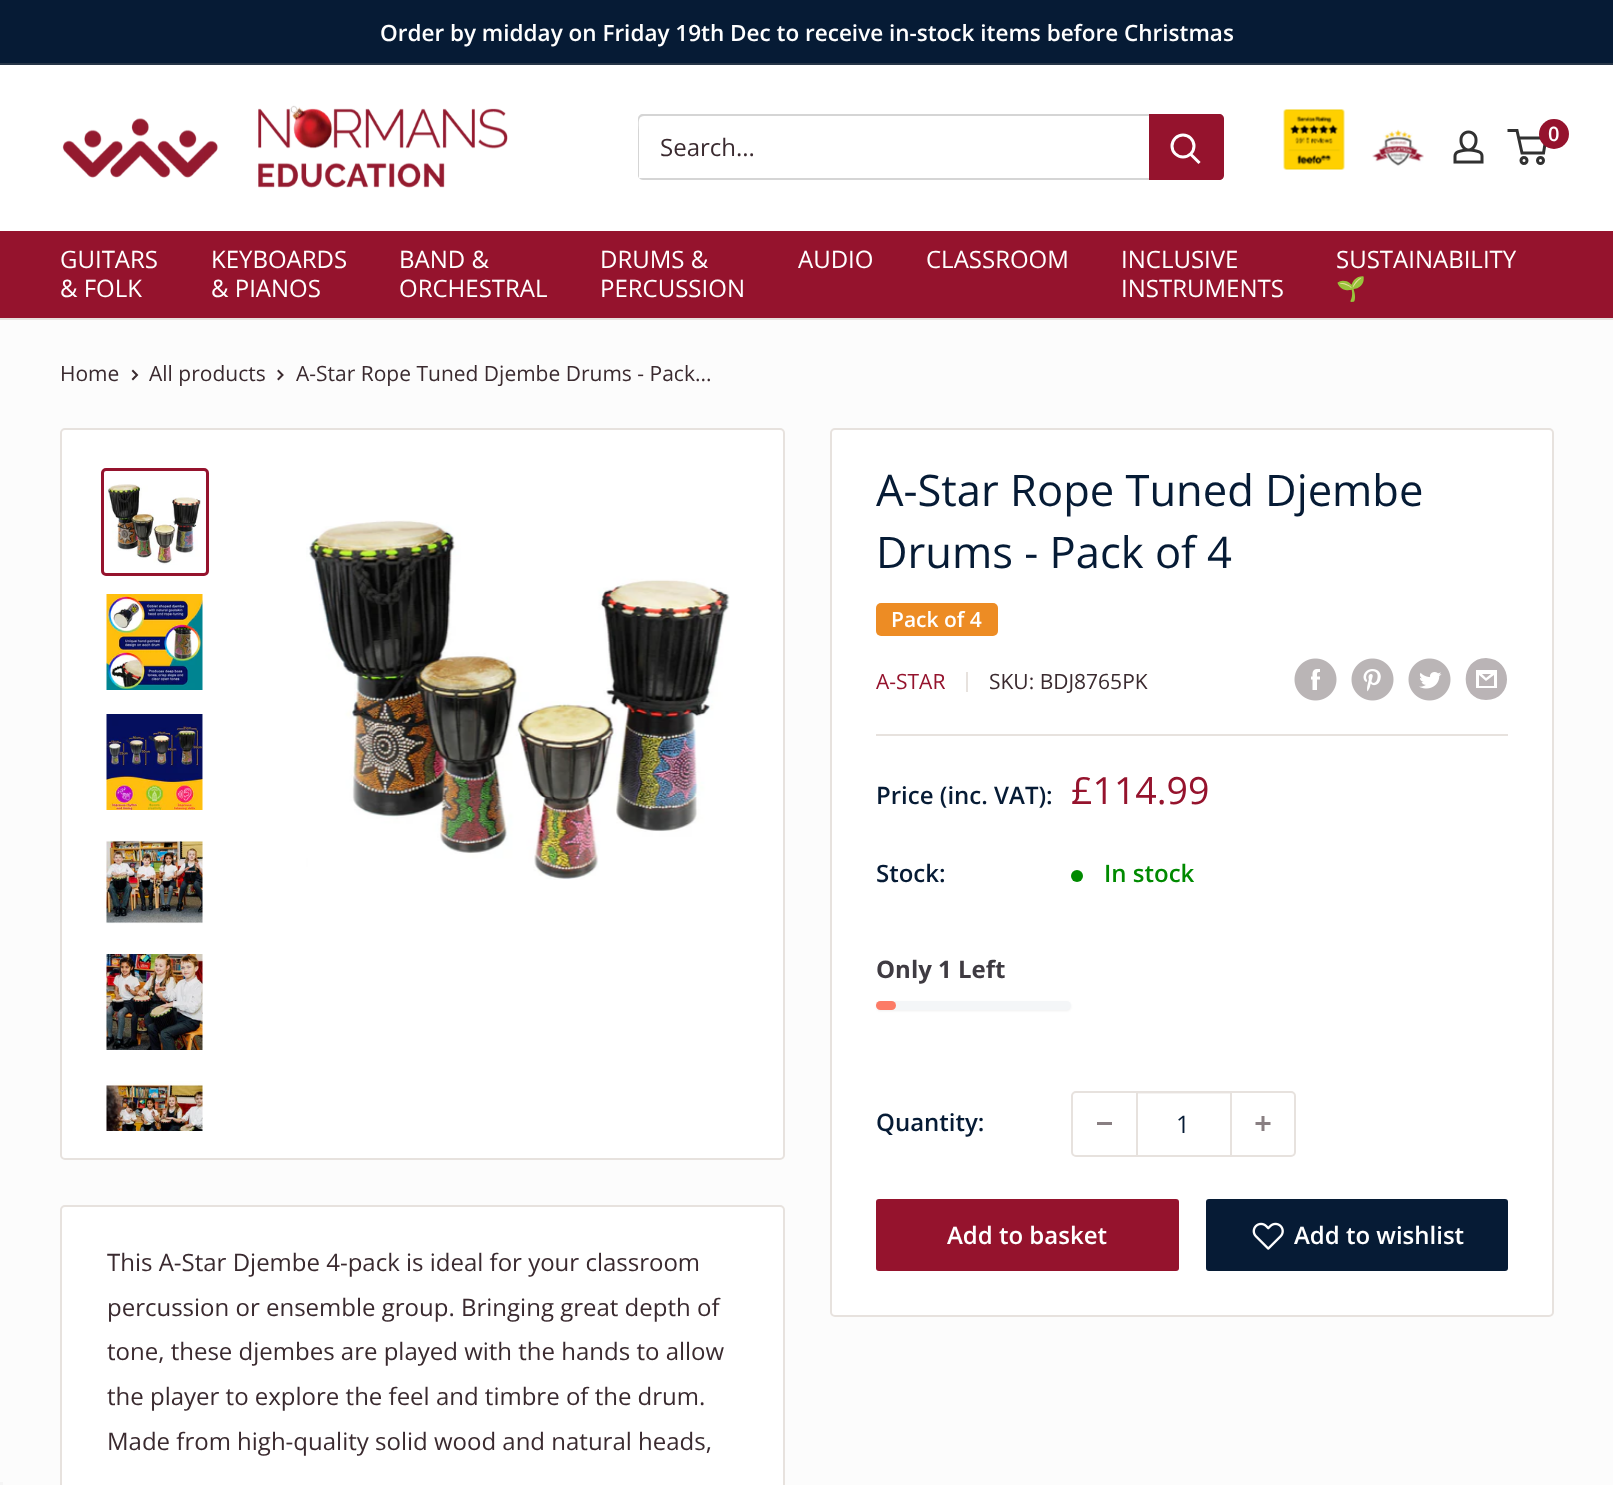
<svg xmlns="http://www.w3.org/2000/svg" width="1613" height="1485">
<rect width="100%" height="100%" fill="#fcfcfc"/>
<rect width="1613" height="63" fill="#061b35"/>
<rect y="63" width="1613" height="2" fill="#273648"/>
<text x="380" y="41" style="font-family:Open Sans;font-size:22.5px;font-weight:600;fill:#fff">Order by midday on Friday 19th Dec to receive in-stock items before Christmas</text>
<rect y="65" width="1613" height="166" fill="#fff"/>
<image x="62" y="105" width="446" height="83" href="media/1.png"/>
<image x="1283" y="109" width="62" height="61" href="media/2.png"/>
<image x="1372" y="129" width="52" height="37" href="media/3.png"/>
<image x="1453" y="130" width="31" height="34" href="media/4.png"/>
<circle cx="1524" cy="160.5" r="3" fill="none" stroke="#313131" stroke-width="3"/>
<circle cx="1540.5" cy="160.5" r="3" fill="none" stroke="#313131" stroke-width="3"/>
<path d="M1518.5 138h27.5l-2.5 15h-21.5l-5-22.5h-9.5" fill="none" stroke="#313131" stroke-width="3"/>
<circle cx="1554" cy="134" r="15" fill="#95132d"/>
<text x="1548" y="141" style="font-family:Open Sans;font-size:20px;font-weight:600;fill:#fff">0</text>
<path d="M639 178c1 1 2 2 4 2h576c3 0 5-2 5-5v-56c0-2-1-4-3-4l1 2v57c0 2-2 4-4 4z" fill="#d5d5d5"/>
<path d="M644 116h577l2 1c0-2-2-3-4-3h-576c-3 0-5 2-5 5v56c0 1 0 2 1 3v-48c0-5-2-14 5-14z" fill="#7474744d"/>
<text x="660" y="156" style="font-family:Open Sans;font-size:24px;fill:#3a2a2f">Search...</text>
<path d="M1149 114h70c3 0 5 2 5 5v56c0 3-2 5-5 5h-70z" fill="#95132d"/>
<path d="M1198.5 162l-7.5-7.5" fill="none" stroke="#fff" stroke-width="3" stroke-linecap="square"/>
<circle cx="1183" cy="146" r="11" fill="none" stroke="#fff" stroke-width="3"/>
<rect y="231" width="1613" height="87" fill="#95132d"/>
<rect y="318" width="1613" height="2" fill="#e7e2de"/>
<text x="60" y="268" style="font-family:Open Sans;font-size:24px;fill:#fff">GUITARS</text>
<text x="60" y="297" style="font-family:Open Sans;font-size:24px;fill:#fff">&amp; FOLK</text>
<text x="211" y="268" style="font-family:Open Sans;font-size:24px;fill:#fff">KEYBOARDS</text>
<text x="211" y="297" style="font-family:Open Sans;font-size:24px;fill:#fff">&amp; PIANOS</text>
<text x="399" y="268" style="font-family:Open Sans;font-size:24px;fill:#fff">BAND &amp;</text>
<text x="399" y="297" style="font-family:Open Sans;font-size:24px;fill:#fff">ORCHESTRAL</text>
<text x="600" y="268" style="font-family:Open Sans;font-size:24px;fill:#fff">DRUMS &amp;</text>
<text x="600" y="297" style="font-family:Open Sans;font-size:24px;fill:#fff">PERCUSSION</text>
<text x="798" y="268" style="font-family:Open Sans;font-size:24px;fill:#fff">AUDIO</text>
<text x="926" y="268" style="font-family:Open Sans;font-size:24px;fill:#fff">CLASSROOM</text>
<text x="1121" y="268" style="font-family:Open Sans;font-size:24px;fill:#fff">INCLUSIVE</text>
<text x="1121" y="297" style="font-family:Open Sans;font-size:24px;fill:#fff">INSTRUMENTS</text>
<text x="1336" y="268" style="font-family:Open Sans;font-size:24px;fill:#fff">SUSTAINABILITY</text>
<text x="1336" y="297" style="font-family:Noto Color Emoji;font-size:24px;fill:#fff">🌱</text>
<text x="60" y="381" style="font-family:Open Sans;font-size:21px;fill:#3a2a2f">Home</text>
<path d="M133 371l4 4l-4 4" fill="none" stroke="#3a2a2f" stroke-width="2" stroke-linecap="square"/>
<text x="149" y="381" style="font-family:Open Sans;font-size:21px;fill:#3a2a2f">All products</text>
<path d="M278.5 371l4 4l-4 4" fill="none" stroke="#3a2a2f" stroke-width="2" stroke-linecap="square"/>
<text x="296" y="381" style="font-family:Open Sans;font-size:21px;fill:#3a2a2f">A-Star Rope Tuned Djembe Drums - Pack...</text>
<rect x="61" y="429" width="723" height="730" rx="4" fill="#fff" stroke="#e7e2de" stroke-width="2"/>
<rect x="102.5" y="469.5" width="105" height="105" rx="3.5" fill="none" stroke="#95132d" stroke-width="3"/>
<image x="106" y="484" width="95" height="81" href="media/5.png"/>
<image x="106" y="594" width="97" height="96" href="media/6.png"/>
<image x="106" y="714" width="97" height="96" href="media/7.png"/>
<image x="106" y="840" width="97" height="84" href="media/8.png"/>
<image x="106" y="954" width="97" height="96" href="media/9.png"/>
<image x="106" y="1081" width="97" height="50" href="media/10.png"/>
<image x="306" y="520" width="424" height="360" href="media/11.png"/>
<rect x="831" y="429" width="722" height="887" rx="4" fill="#fff" stroke="#e7e2de" stroke-width="2"/>
<text x="876" y="506" style="font-family:Open Sans;font-size:43.5px;fill:#061b35">A-Star Rope Tuned Djembe</text>
<text x="876" y="568" style="font-family:Open Sans;font-size:43.5px;fill:#061b35">Drums - Pack of 4</text>
<rect x="876" y="603" width="122" height="33" rx="5" fill="#ed8c24"/>
<text x="891" y="627" style="font-family:Open Sans;font-size:21px;font-weight:600;fill:#fff">Pack of 4</text>
<text x="876" y="689" style="font-family:Open Sans;font-size:21px;fill:#95132d">A-STAR</text>
<rect x="966" y="672" width="2" height="20" fill="#e7e2de"/>
<text x="989" y="689" style="font-family:Open Sans;font-size:21px;fill:#3a2a2f">SKU: BDJ8765PK</text>
<image x="1294" y="658" width="43" height="43" href="media/12.png"/>
<image x="1351" y="658" width="43" height="43" href="media/13.png"/>
<image x="1408" y="658" width="43" height="43" href="media/14.png"/>
<path d="M1486 700c-27 0-27-42 0-42c28 1 28 42 0 42zm-4-26h9l-5 4zm12 1v11h-15v-11l7 6zm3-5h-21v18h21z" fill="#bab4b6"/>
<rect x="876" y="734" width="632" height="2" fill="#e7e2de"/>
<text x="876" y="804" style="font-family:Open Sans;font-size:24px;font-weight:600;fill:#061b35">Price (inc. VAT):</text>
<text x="1071" y="804" style="font-family:Open Sans;font-size:37.5px;fill:#95132d">£114.99</text>
<text x="876" y="882" style="font-family:Open Sans;font-size:24px;font-weight:600;fill:#061b35">Stock:</text>
<circle cx="1077" cy="876" r="6" fill="#008a00"/>
<text x="1104" y="882" style="font-family:Open Sans;font-size:24px;font-weight:600;fill:#008a00">In stock</text>
<text x="876" y="978" style="font-family:Open Sans;font-size:24px;font-weight:bold;fill:#3f3b42">Only 1 Left</text>
<rect x="876" y="1002" width="195" height="9" rx="4.5" fill="#0000000f" filter="blur(1px)"/>
<rect x="876" y="1001" width="195" height="9" rx="4.5" fill="#f4f6f8"/>
<rect x="876" y="1001" width="20" height="9" rx="4.5" fill="#fc7b66"/>
<text x="876" y="1131" style="font-family:Open Sans;font-size:24px;font-weight:600;fill:#061b35">Quantity:</text>
<rect x="1072" y="1092" width="223" height="64" rx="4" fill="none" stroke="#e7e2de" stroke-width="2"/>
<rect x="1097" y="1122" width="15" height="3" fill="#897f82"/>
<rect x="1137" y="1093" width="93" height="1" fill="#e7e2de66"/>
<rect x="1230" y="1092" width="2" height="63" fill="#e7e2de"/>
<rect x="1136" y="1092" width="2" height="63" fill="#e7e2de"/>
<text x="1176" y="1133" style="font-family:Open Sans;font-size:24px;fill:#061b35">1</text>
<image x="1255" y="1116" width="16" height="15" href="media/15.png"/>
<rect x="876" y="1199" width="303" height="72" rx="3" fill="#95132d"/>
<text x="947" y="1244" style="font-family:Open Sans;font-size:24px;font-weight:600;fill:#fff">Add to basket</text>
<rect x="1206" y="1199" width="302" height="72" rx="3" fill="#061b35"/>
<image x="1252" y="1222" width="32" height="28" href="media/16.png"/>
<text x="1294" y="1244" style="font-family:Open Sans;font-size:24px;font-weight:600;fill:#fff">Add to wishlist</text>
<rect x="61" y="1206" width="723" height="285" rx="4" fill="#fff" stroke="#e7e2de" stroke-width="2"/>
<text x="107" y="1271" style="font-family:Open Sans;font-size:24px;fill:#3a2a2f">This A-Star Djembe 4-pack is ideal for your classroom</text>
<text x="107" y="1316" style="font-family:Open Sans;font-size:24px;fill:#3a2a2f">percussion or ensemble group. Bringing great depth of</text>
<text x="107" y="1360" style="font-family:Open Sans;font-size:24px;fill:#3a2a2f">tone, these djembes are played with the hands to allow</text>
<text x="107" y="1405" style="font-family:Open Sans;font-size:24px;fill:#3a2a2f">the player to explore the feel and timbre of the drum.</text>
<text x="107" y="1450" style="font-family:Open Sans;font-size:24px;fill:#3a2a2f">Made from high-quality solid wood and natural heads,</text>
<rect y="1482" width="3" height="3" fill="#f5f5f5"/>
</svg>
